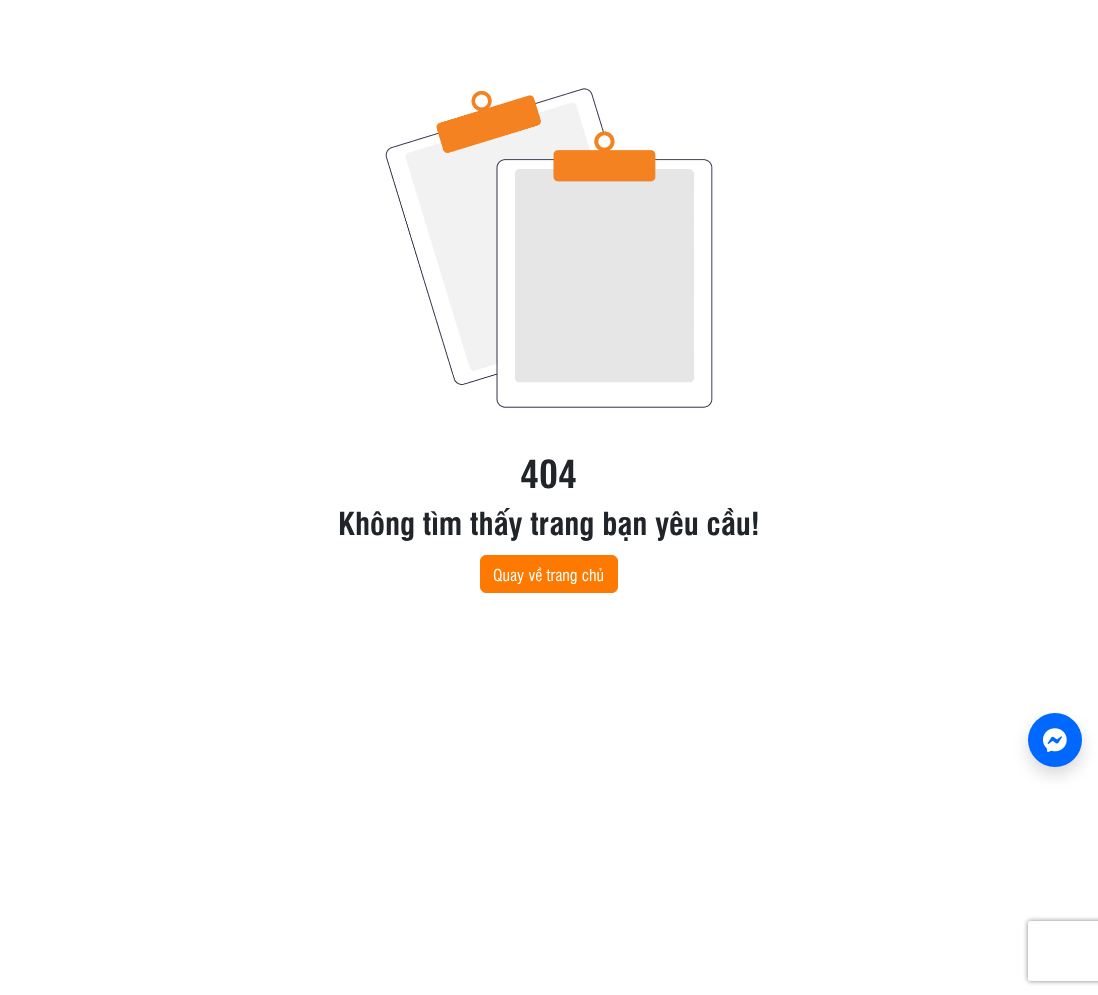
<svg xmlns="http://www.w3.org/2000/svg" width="1098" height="995">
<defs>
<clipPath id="clip1"><path d="M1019 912h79v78h-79zm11 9h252c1 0 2 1 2 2v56c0 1-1 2-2 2h-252c-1 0-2-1-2-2v-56c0-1 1-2 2-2z" clip-rule="evenodd"/></clipPath>
</defs>
<rect width="100%" height="100%" fill="#fff"/>
<image x="385" y="88" width="328" height="320" href="media/1.png"/>
<text x="520" y="488" style="font-family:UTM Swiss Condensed;font-size:38px;font-weight:bold;fill:#212529">404</text>
<text x="338" y="535" style="font-family:UTM Swiss Condensed;font-size:31.1px;font-weight:bold;fill:#212529">Không tìm thấy trang bạn yêu cầu!</text>
<rect x="480.5" y="555.5" width="137" height="37" rx="5.5" fill="#fe7900" stroke="#fe7900"/>
<text x="493" y="581" style="font-family:UTM Swiss Condensed;font-size:16px;fill:#fff">Quay về trang chủ</text>
<rect x="1028" y="721" width="54" height="54" rx="27" fill="#00000026" filter="blur(8px)"/>
<circle cx="1055" cy="740" r="27" fill="#0068ff"/>
<image x="1043" y="728" width="24" height="24" href="media/2.png"/>
<g clip-path="url(#clip1)">
<rect x="1028" y="921" width="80" height="60" rx="2" fill="#808080" filter="blur(2.5px)"/>
</g>
</svg>
